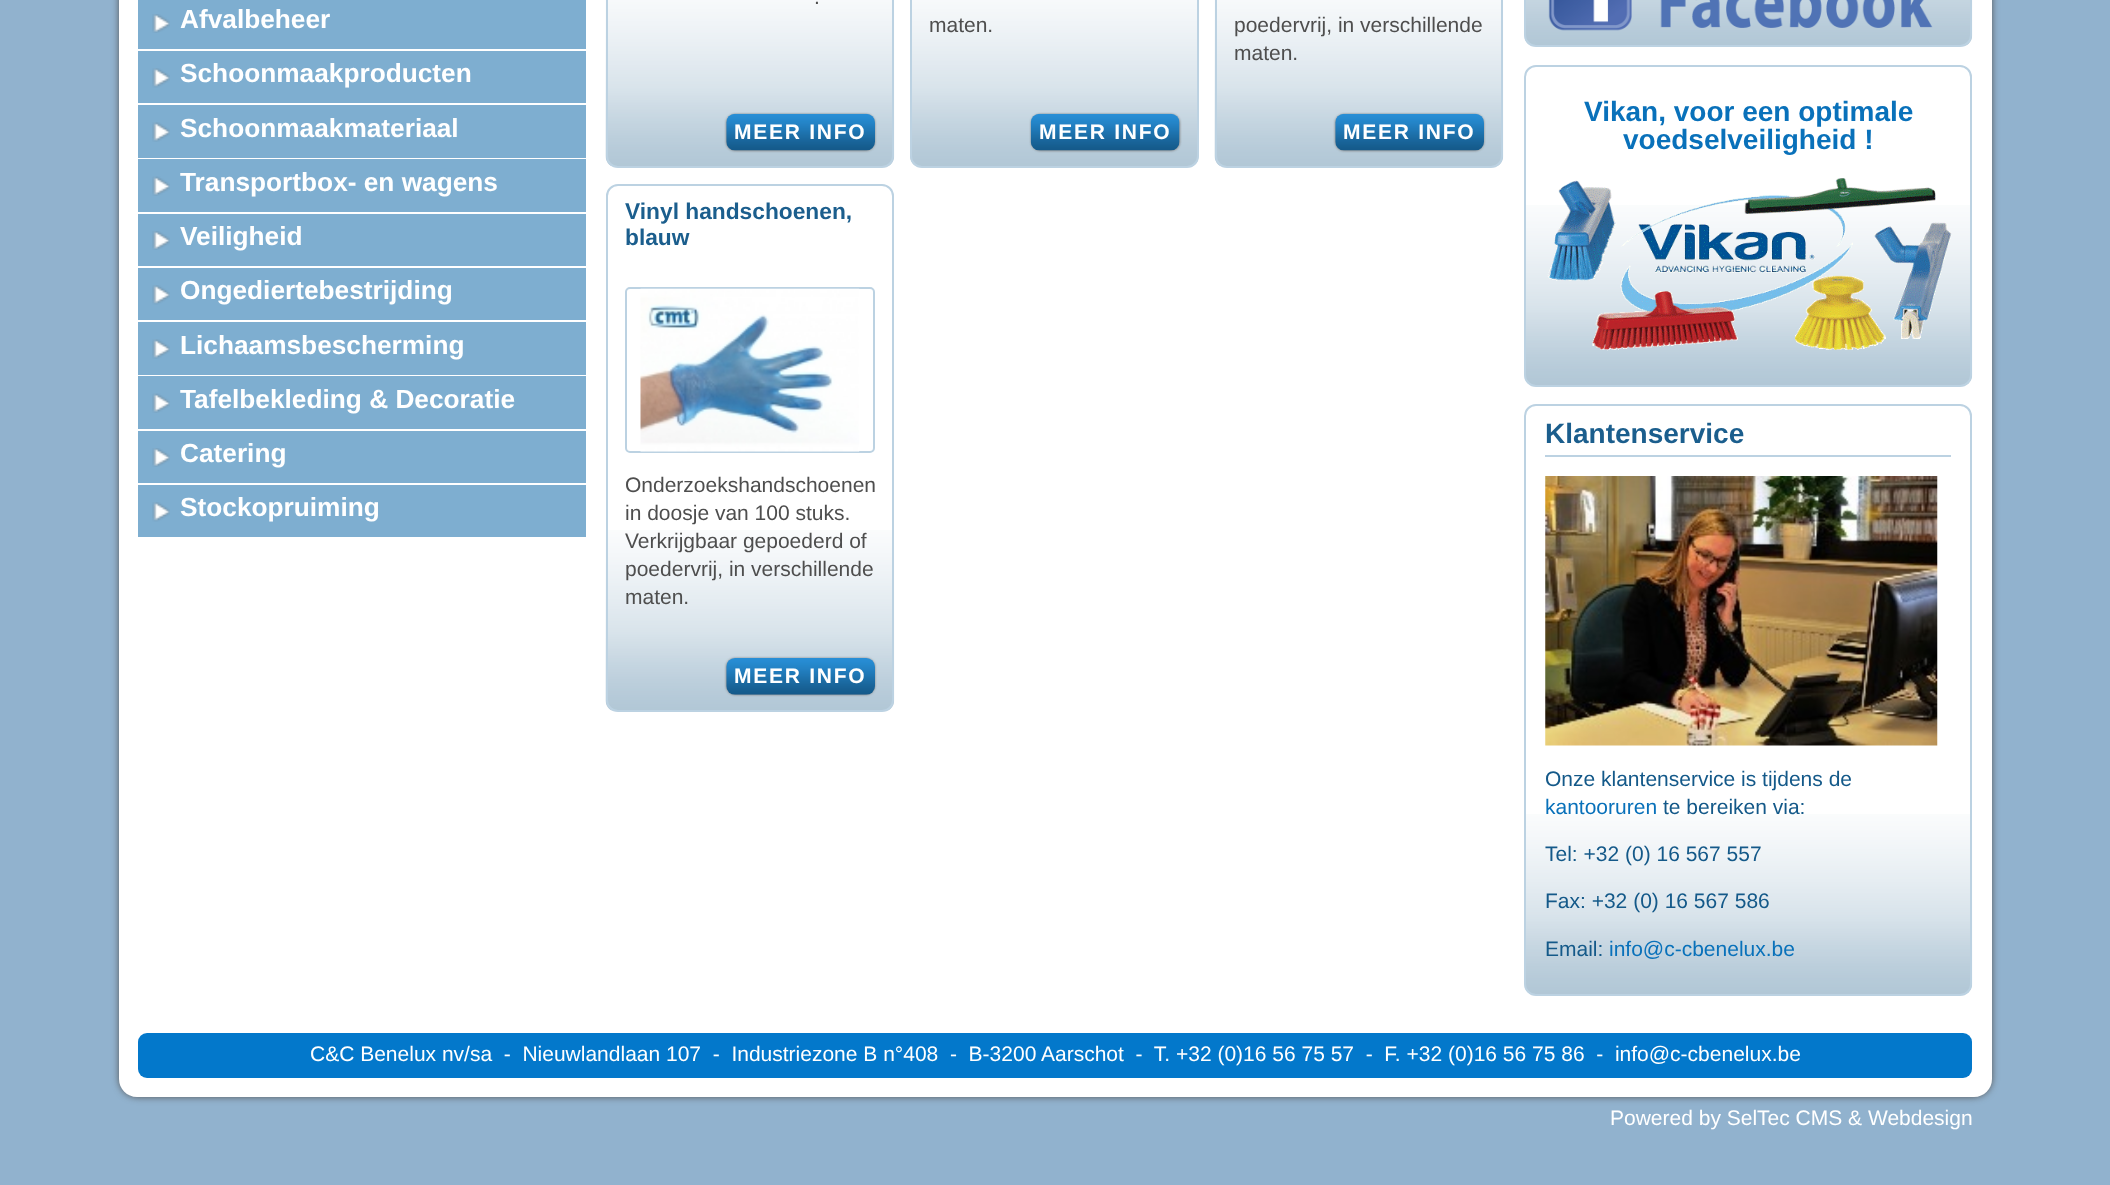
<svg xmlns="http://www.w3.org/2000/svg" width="2110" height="1185">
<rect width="100%" height="100%" fill="#91b2ce"/>
<rect x="119" y="-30" width="1873" height="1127" rx="19" fill="#555" filter="blur(3.5px)"/>
<rect x="119" width="1873" height="1013" fill="#fff"/>
<rect x="138" width="448" height="49" fill="#7eaed0"/>
<image x="152" y="14" width="18" height="19" href="media/1.png"/>
<text x="180" y="28" style="font-family:Liberation Sans;font-size:26.25px;font-weight:bold;fill:#fff">Afvalbeheer</text>
<rect x="138" y="51" width="448" height="52" fill="#7eaed0"/>
<image x="152" y="68" width="18" height="20" href="media/2.png"/>
<text x="180" y="82" style="font-family:Liberation Sans;font-size:26.25px;font-weight:bold;fill:#fff">Schoonmaakproducten</text>
<rect x="138" y="105" width="448" height="53" fill="#7eaed0"/>
<image x="152" y="122" width="18" height="20" href="media/3.png"/>
<text x="180" y="137" style="font-family:Liberation Sans;font-size:26.25px;font-weight:bold;fill:#fff">Schoonmaakmateriaal</text>
<rect x="138" y="159" width="448" height="53" fill="#7eaed0"/>
<image x="152" y="176" width="18" height="20" href="media/4.png"/>
<text x="180" y="191" style="font-family:Liberation Sans;font-size:26.25px;font-weight:bold;fill:#fff">Transportbox- en wagens</text>
<rect x="138" y="214" width="448" height="52" fill="#7eaed0"/>
<image x="152" y="231" width="18" height="19" href="media/1.png"/>
<text x="180" y="245" style="font-family:Liberation Sans;font-size:26.25px;font-weight:bold;fill:#fff">Veiligheid</text>
<rect x="138" y="268" width="448" height="52" fill="#7eaed0"/>
<image x="152" y="285" width="18" height="20" href="media/2.png"/>
<text x="180" y="299" style="font-family:Liberation Sans;font-size:26.25px;font-weight:bold;fill:#fff">Ongediertebestrijding</text>
<rect x="138" y="322" width="448" height="53" fill="#7eaed0"/>
<image x="152" y="339" width="18" height="20" href="media/3.png"/>
<text x="180" y="354" style="font-family:Liberation Sans;font-size:26.25px;font-weight:bold;fill:#fff">Lichaamsbescherming</text>
<rect x="138" y="376" width="448" height="53" fill="#7eaed0"/>
<image x="152" y="393" width="18" height="20" href="media/4.png"/>
<text x="180" y="408" style="font-family:Liberation Sans;font-size:26.25px;font-weight:bold;fill:#fff">Tafelbekleding &amp; Decoratie</text>
<rect x="138" y="431" width="448" height="52" fill="#7eaed0"/>
<image x="152" y="448" width="18" height="19" href="media/1.png"/>
<text x="180" y="462" style="font-family:Liberation Sans;font-size:26.25px;font-weight:bold;fill:#fff">Catering</text>
<rect x="138" y="485" width="448" height="52" fill="#7eaed0"/>
<image x="152" y="502" width="18" height="20" href="media/5.png"/>
<text x="180" y="516" style="font-family:Liberation Sans;font-size:26.25px;font-weight:bold;fill:#fff">Stockopruiming</text>
<image x="605" y="0" width="290" height="167" href="media/6.png"/>
<rect x="607" y="-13" width="286" height="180" rx="11" fill="none" stroke="#bcd2e2" stroke-width="2"/>
<text x="814" y="4" style="font-family:Liberation Sans;font-size:21px;fill:#4e4e4e">.</text>
<rect x="726" y="114" width="149" height="37" rx="9" fill="#888" filter="blur(1px)"/>
<image x="726" y="113" width="149" height="38" href="media/7.png"/>
<text x="734" y="139" style="font-family:Liberation Sans;font-size:21px;font-weight:bold;letter-spacing:1.75px;fill:#fff">MEER INFO</text>
<image x="910" y="0" width="289" height="167" href="media/8.png"/>
<rect x="911" y="-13" width="287" height="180" rx="11" fill="none" stroke="#bcd2e2" stroke-width="2"/>
<text x="929" y="32" style="font-family:Liberation Sans;font-size:21px;fill:#4e4e4e">maten.</text>
<rect x="1031" y="114" width="149" height="37" rx="9" fill="#888" filter="blur(1px)"/>
<image x="1030" y="113" width="150" height="38" href="media/9.png"/>
<text x="1039" y="139" style="font-family:Liberation Sans;font-size:21px;font-weight:bold;letter-spacing:1.75px;fill:#fff">MEER INFO</text>
<image x="1214" y="0" width="290" height="167" href="media/10.png"/>
<rect x="1216" y="-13" width="286" height="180" rx="11" fill="none" stroke="#bcd2e2" stroke-width="2"/>
<text x="1234" y="32" style="font-family:Liberation Sans;font-size:21px;fill:#4e4e4e">poedervrij, in verschillende</text>
<text x="1234" y="60" style="font-family:Liberation Sans;font-size:21px;fill:#4e4e4e">maten.</text>
<rect x="1335" y="114" width="149" height="37" rx="9" fill="#888" filter="blur(1px)"/>
<image x="1335" y="113" width="149" height="38" href="media/11.png"/>
<text x="1343" y="139" style="font-family:Liberation Sans;font-size:21px;font-weight:bold;letter-spacing:1.75px;fill:#fff">MEER INFO</text>
<image x="605" y="530" width="290" height="181" href="media/12.png"/>
<rect x="607" y="185" width="286" height="526" rx="11" fill="none" stroke="#bcd2e2" stroke-width="2"/>
<text x="625" y="219" style="font-family:Liberation Sans;font-size:22.75px;font-weight:bold;fill:#1b5e8d">Vinyl handschoenen,</text>
<text x="625" y="245" style="font-family:Liberation Sans;font-size:22.75px;font-weight:bold;fill:#1b5e8d">blauw</text>
<rect x="626" y="288" width="248" height="164" rx="4" fill="none" stroke="#bcd2e2" stroke-width="2"/>
<image x="640" y="288" width="220" height="164" href="media/13.png"/>
<text x="625" y="492" style="font-family:Liberation Sans;font-size:21px;fill:#4e4e4e">Onderzoekshandschoenen</text>
<text x="625" y="520" style="font-family:Liberation Sans;font-size:21px;fill:#4e4e4e">in doosje van 100 stuks.</text>
<text x="625" y="548" style="font-family:Liberation Sans;font-size:21px;fill:#4e4e4e">Verkrijgbaar gepoederd of</text>
<text x="625" y="576" style="font-family:Liberation Sans;font-size:21px;fill:#4e4e4e">poedervrij, in verschillende</text>
<text x="625" y="604" style="font-family:Liberation Sans;font-size:21px;fill:#4e4e4e">maten.</text>
<rect x="726" y="658" width="149" height="37" rx="9" fill="#888" filter="blur(1px)"/>
<image x="726" y="658" width="149" height="37" href="media/14.png"/>
<text x="734" y="683" style="font-family:Liberation Sans;font-size:21px;font-weight:bold;letter-spacing:1.75px;fill:#fff">MEER INFO</text>
<image x="1524" y="0" width="449" height="46" href="media/15.png"/>
<rect x="1525" y="-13" width="446" height="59" rx="11" fill="none" stroke="#bcd2e2" stroke-width="2"/>
<image x="1548" y="0" width="385" height="31" href="media/16.png"/>
<image x="1524" y="205" width="449" height="180" href="media/17.png"/>
<rect x="1525" y="66" width="446" height="320" rx="11" fill="none" stroke="#bcd2e2" stroke-width="2"/>
<text x="1584" y="121" style="font-family:Liberation Sans;font-size:28px;font-weight:bold;fill:#0971ba">Vikan, voor een optimale</text>
<text x="1623" y="149" style="font-family:Liberation Sans;font-size:28px;font-weight:bold;fill:#0971ba">voedselveiligheid !</text>
<image x="1547" y="178" width="405" height="173" href="media/18.png"/>
<image x="1524" y="814" width="449" height="180" href="media/19.png"/>
<rect x="1525" y="405" width="446" height="590" rx="11" fill="none" stroke="#bcd2e2" stroke-width="2"/>
<rect x="1545" y="455" width="406" height="2" fill="#bcd2e2"/>
<text x="1545" y="443" style="font-family:Liberation Sans;font-size:28px;font-weight:bold;fill:#1b5e8d">Klantenservice</text>
<image x="1545" y="476" width="393" height="270" href="media/20.png"/>
<text x="1545" y="786" style="font-family:Liberation Sans;font-size:21px;fill:#145989">Onze klantenservice is tijdens de</text>
<text x="1545" y="814" style="font-family:Liberation Sans;font-size:21px;fill:#0971ba">kantooruren</text>
<text x="1663" y="814" style="font-family:Liberation Sans;font-size:21px;fill:#145989">te bereiken via:</text>
<text x="1545" y="861" style="font-family:Liberation Sans;font-size:21px;fill:#145989">Tel: +32 (0) 16 567 557</text>
<text x="1545" y="908" style="font-family:Liberation Sans;font-size:21px;fill:#145989">Fax: +32 (0) 16 567 586</text>
<text x="1545" y="956" style="font-family:Liberation Sans;font-size:21px;fill:#145989">Email:</text>
<text x="1609" y="956" style="font-family:Liberation Sans;font-size:21px;fill:#0971ba">info@c-cbenelux.be</text>
<path d="M119 1013h1873v66c0 10-8 18-18 18h-1837c-10 0-18-8-18-18z" fill="#fff"/>
<rect x="138" y="1033" width="1834" height="45" rx="9" fill="#0378cb"/>
<text x="310" y="1061" style="font-family:Liberation Sans;font-size:21px;fill:#fff" xml:space="preserve">C&amp;C Benelux nv/sa  -  Nieuwlandlaan 107  -  Industriezone B n°408  -  B-3200 Aarschot  -  T. +32 (0)16 56 75 57  -  F. +32 (0)16 56 75 86  -  info@c-cbenelux.be</text>
<text x="1610" y="1125" style="font-family:Liberation Sans;font-size:21px;fill:#fff">Powered by SelTec CMS &amp; Webdesign</text>
</svg>
